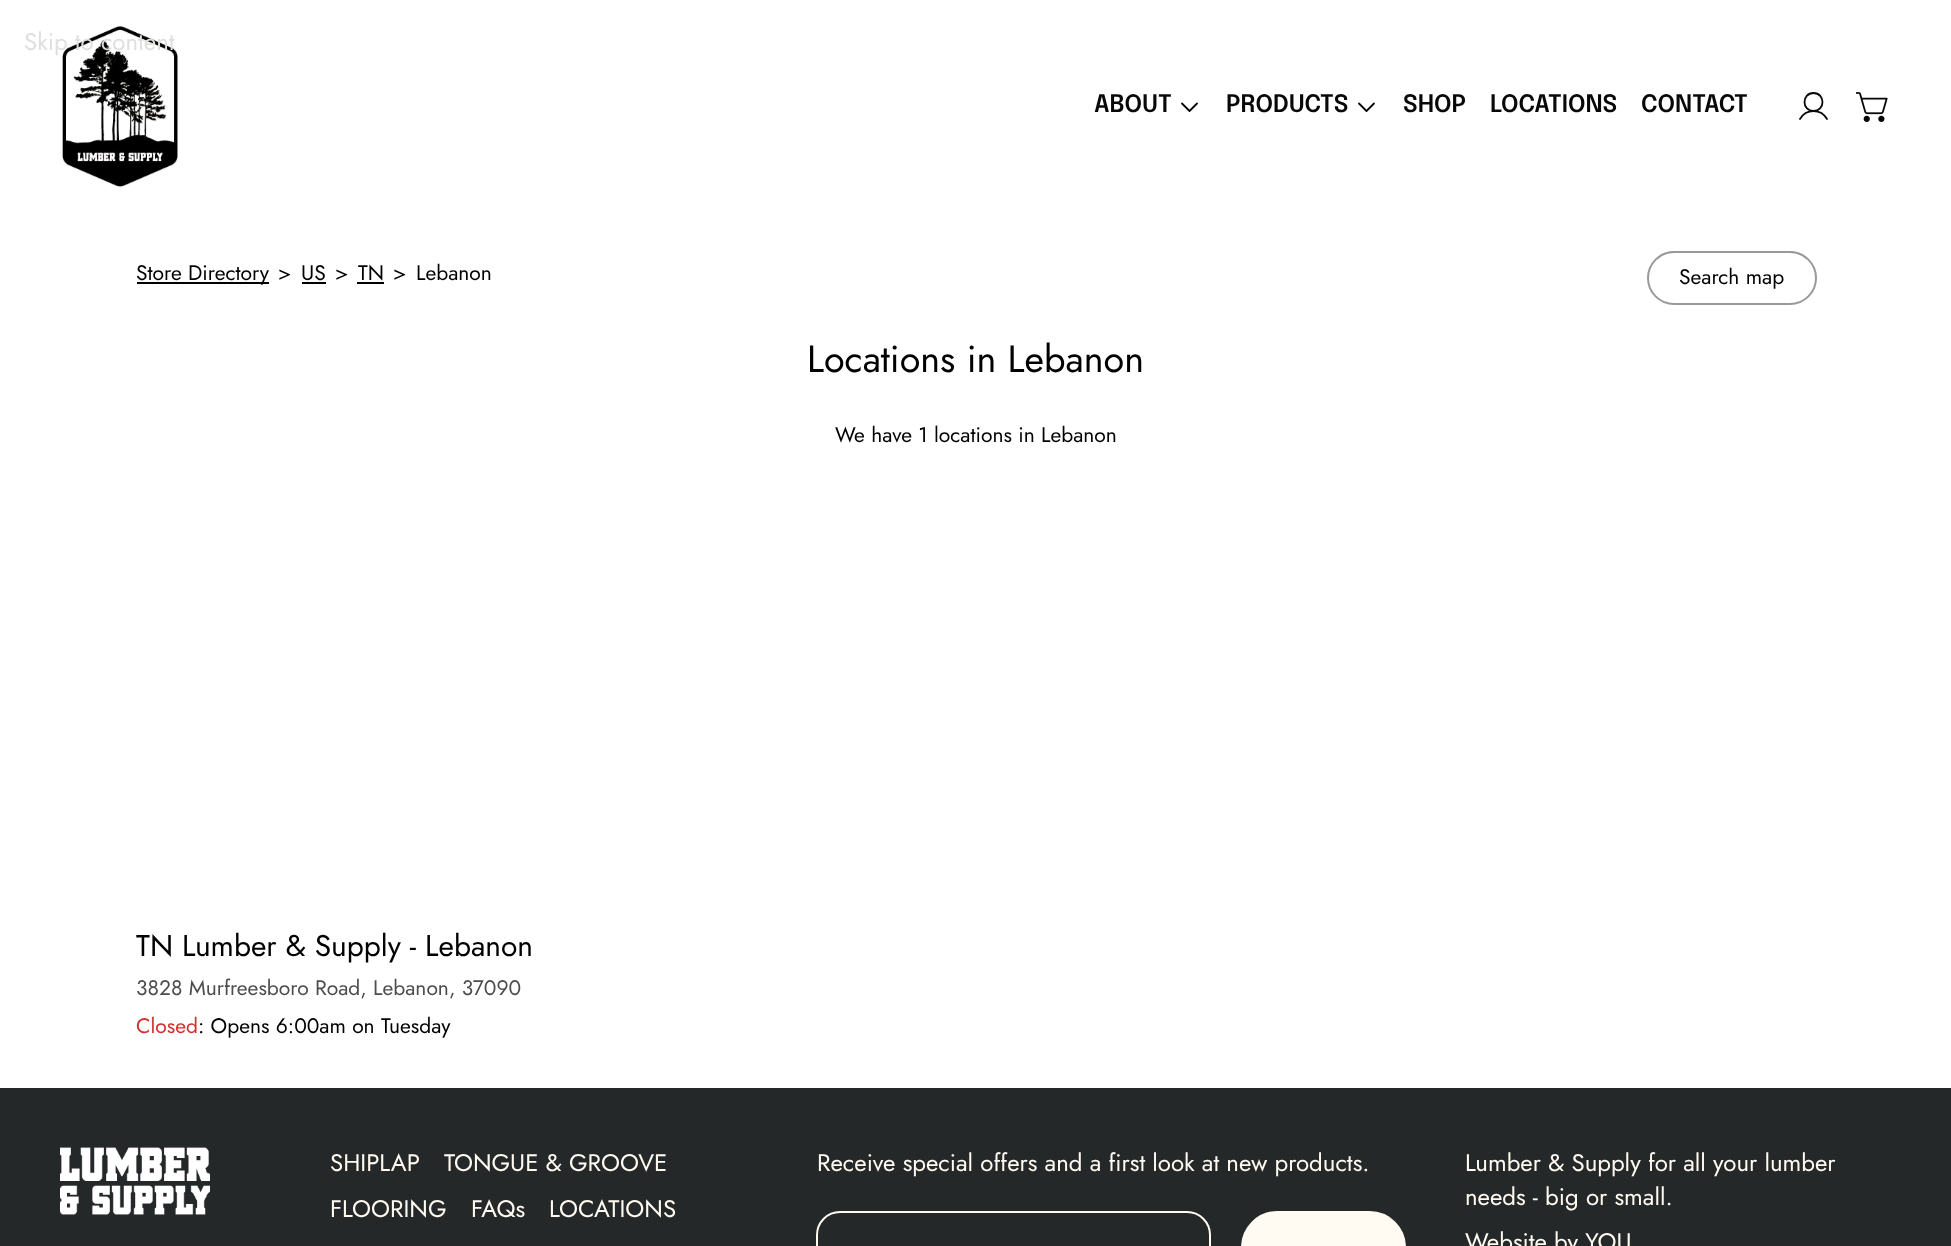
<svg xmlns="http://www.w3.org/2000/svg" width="1951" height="1246">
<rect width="100%" height="100%" fill="#fff"/>
<image x="62" y="26" width="116" height="162" href="media/1.png"/>
<text x="24" y="50" style="font-family:Jost;font-size:24px;fill:#dfdfde">Skip to content</text>
<text x="1094" y="112" style="font-family:Epilogue;font-size:24px;font-weight:600;fill:#080808">ABOUT</text>
<path d="M1197 103.5l-7.5 7.5l-7.5-7.5" fill="none" stroke="#080808" stroke-width="1.8" stroke-linecap="round" stroke-linejoin="round"/>
<text x="1226" y="112" style="font-family:Epilogue;font-size:24px;font-weight:600;fill:#080808">PRODUCTS</text>
<path d="M1374 103.5l-7.5 7.5l-7.5-7.5" fill="none" stroke="#080808" stroke-width="1.8" stroke-linecap="round" stroke-linejoin="round"/>
<text x="1403" y="112" style="font-family:Epilogue;font-size:24px;font-weight:600;fill:#080808">SHOP</text>
<text x="1490" y="112" style="font-family:Epilogue;font-size:24px;font-weight:600;fill:#080808">LOCATIONS</text>
<text x="1641" y="112" style="font-family:Epilogue;font-size:24px;font-weight:600;fill:#080808">CONTACT</text>
<path d="M1813.5 111c12 0 12-18 0-18c-12 0-12 18 0 18z" fill="none" stroke="#080808" stroke-width="1.8"/>
<path d="M1800 119c6-10.5 21-10.5 27 0" fill="none" stroke="#080808" stroke-width="1.8" stroke-linecap="round" stroke-linejoin="round"/>
<image x="1856" y="92" width="32" height="30" href="media/2.png"/>
<rect x="137" y="282" width="132" height="2" fill="#000"/>
<text x="136" y="280" style="font-family:Jost;font-size:21px;fill:#000">Store Directory</text>
<text x="278" y="280" style="font-family:Jost;font-size:21px;fill:#000">&gt;</text>
<text x="301" y="280" style="font-family:Jost;font-size:21px;fill:#000">US</text>
<rect x="302" y="282" width="24" height="2" fill="#000"/>
<text x="335" y="280" style="font-family:Jost;font-size:21px;fill:#000">&gt;</text>
<text x="358" y="280" style="font-family:Jost;font-size:21px;fill:#000">TN</text>
<rect x="357" y="282" width="27" height="2" fill="#000"/>
<text x="393" y="280" style="font-family:Jost;font-size:21px;fill:#000">&gt;</text>
<text x="416" y="280" style="font-family:Jost;font-size:21px;fill:#000">Lebanon</text>
<rect x="1648" y="252" width="168" height="52" rx="26" fill="none" stroke="#999" stroke-width="2"/>
<text x="1679" y="284" style="font-family:Jost;font-size:21px;fill:#000">Search map</text>
<text x="807" y="372" style="font-family:Jost;font-size:37.75px;fill:#000">Locations in Lebanon</text>
<text x="835" y="442" style="font-family:Jost;font-size:21px;fill:#000">We have 1 locations in Lebanon</text>
<text x="136" y="956" style="font-family:Jost;font-size:29.9px;fill:#000">TN Lumber &amp; Supply - Lebanon</text>
<text x="136" y="995" style="font-family:Jost;font-size:21px;fill:#4d4d4d">3828 Murfreesboro Road, Lebanon, 37090</text>
<text x="136" y="1033" style="font-family:Jost;font-size:21px;fill:#d42e2e">Closed</text>
<text x="198" y="1033" style="font-family:Jost;font-size:21px;fill:#000">: Opens 6:00am on Tuesday</text>
<rect y="1088" width="1951" height="158" fill="#242828"/>
<image x="60" y="1147" width="150" height="68" href="media/3.png"/>
<text x="330" y="1171" style="font-family:Jost;font-size:24px;fill:#fffaf2">SHIPLAP</text>
<text x="444" y="1171" style="font-family:Jost;font-size:24px;fill:#fffaf2">TONGUE &amp; GROOVE</text>
<text x="330" y="1217" style="font-family:Jost;font-size:24px;fill:#fffaf2">FLOORING</text>
<text x="471" y="1217" style="font-family:Jost;font-size:24px;fill:#fffaf2">FAQs</text>
<text x="549" y="1217" style="font-family:Jost;font-size:24px;fill:#fffaf2">LOCATIONS</text>
<text x="817" y="1171" style="font-family:Jost;font-size:24px;fill:#fffaf2">Receive special offers and a first look at new products.</text>
<rect x="817" y="1212" width="393" height="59" rx="23" fill="none" stroke="#fffaf2" stroke-width="2"/>
<rect x="1242" y="1212" width="163" height="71" rx="35.5" fill="#fffaf2" stroke="#fffaf2" stroke-width="2"/>
<text x="1465" y="1171" style="font-family:Jost;font-size:24px;fill:#fffaf2">Lumber &amp; Supply for all your lumber</text>
<text x="1465" y="1205" style="font-family:Jost;font-size:24px;fill:#fffaf2">needs - big or small.</text>
<text x="1465" y="1250" style="font-family:Jost;font-size:24px;fill:#fffaf2">Website by YOU</text>
</svg>
